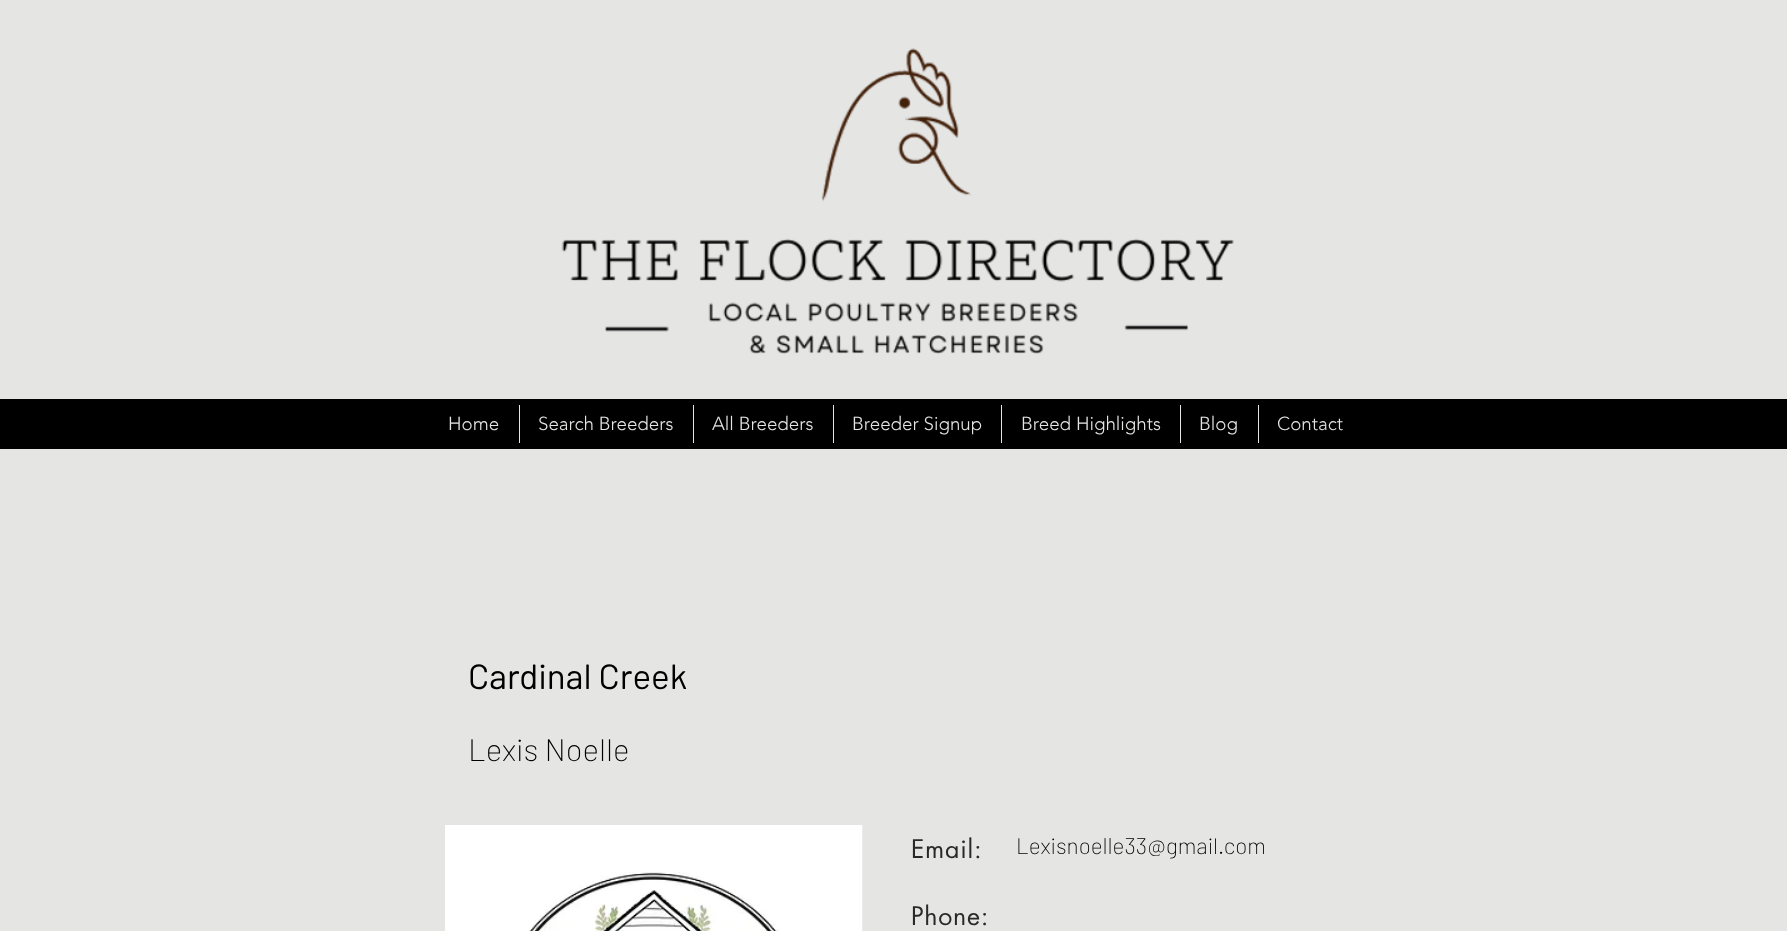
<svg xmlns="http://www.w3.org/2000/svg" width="1787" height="931">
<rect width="100%" height="100%" fill="#e5e5e4"/>
<image x="561" y="48" width="673" height="306" href="media/1.png"/>
<rect y="399" width="1787" height="50" fill="#000"/>
<text x="448" y="430" style="font-family:'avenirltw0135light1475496';font-size:18.75px;font-weight:300;fill:#e5e5e4">Home</text>
<rect x="519" y="405" width="1" height="38" fill="#e5e5e4"/>
<text x="538" y="430" style="font-family:'avenirltw0135light1475496';font-size:18.75px;font-weight:300;fill:#e5e5e4">Search Breeders</text>
<rect x="693" y="405" width="1" height="38" fill="#e5e5e4"/>
<text x="712" y="430" style="font-family:'avenirltw0135light1475496';font-size:18.75px;font-weight:300;fill:#e5e5e4">All Breeders</text>
<rect x="833" y="405" width="1" height="38" fill="#e5e5e4"/>
<text x="852" y="430" style="font-family:'avenirltw0135light1475496';font-size:18.75px;font-weight:300;fill:#e5e5e4">Breeder Signup</text>
<rect x="1001" y="405" width="1" height="38" fill="#e5e5e4"/>
<text x="1021" y="430" style="font-family:'avenirltw0135light1475496';font-size:18.75px;font-weight:300;fill:#e5e5e4">Breed Highlights</text>
<rect x="1180" y="405" width="1" height="38" fill="#e5e5e4"/>
<text x="1199" y="430" style="font-family:'avenirltw0135light1475496';font-size:18.75px;font-weight:300;fill:#e5e5e4">Blog</text>
<rect x="1258" y="405" width="1" height="38" fill="#e5e5e4"/>
<text x="1277" y="430" style="font-family:'avenirltw0135light1475496';font-size:18.75px;font-weight:300;fill:#e5e5e4">Contact</text>
<text x="468" y="689" style="font-family:Barlow;font-size:35px;fill:#000">Cardinal Creek</text>
<text x="468" y="761" style="font-family:Barlow;font-size:31.25px;font-weight:200;fill:#000">Lexis Noelle</text>
<image x="445" y="825" width="418" height="106" href="media/2.png"/>
<text x="911" y="858" style="font-family:futura;font-size:25px;letter-spacing:0.75px;fill:#292929">Email:</text>
<text x="911" y="925" style="font-family:futura;font-size:25px;letter-spacing:0.75px;fill:#292929">Phone:</text>
<text x="1016" y="854" style="font-family:Barlow;font-size:22.5px;font-weight:200;fill:#000">Lexisnoelle33@gmail.com</text>
</svg>
